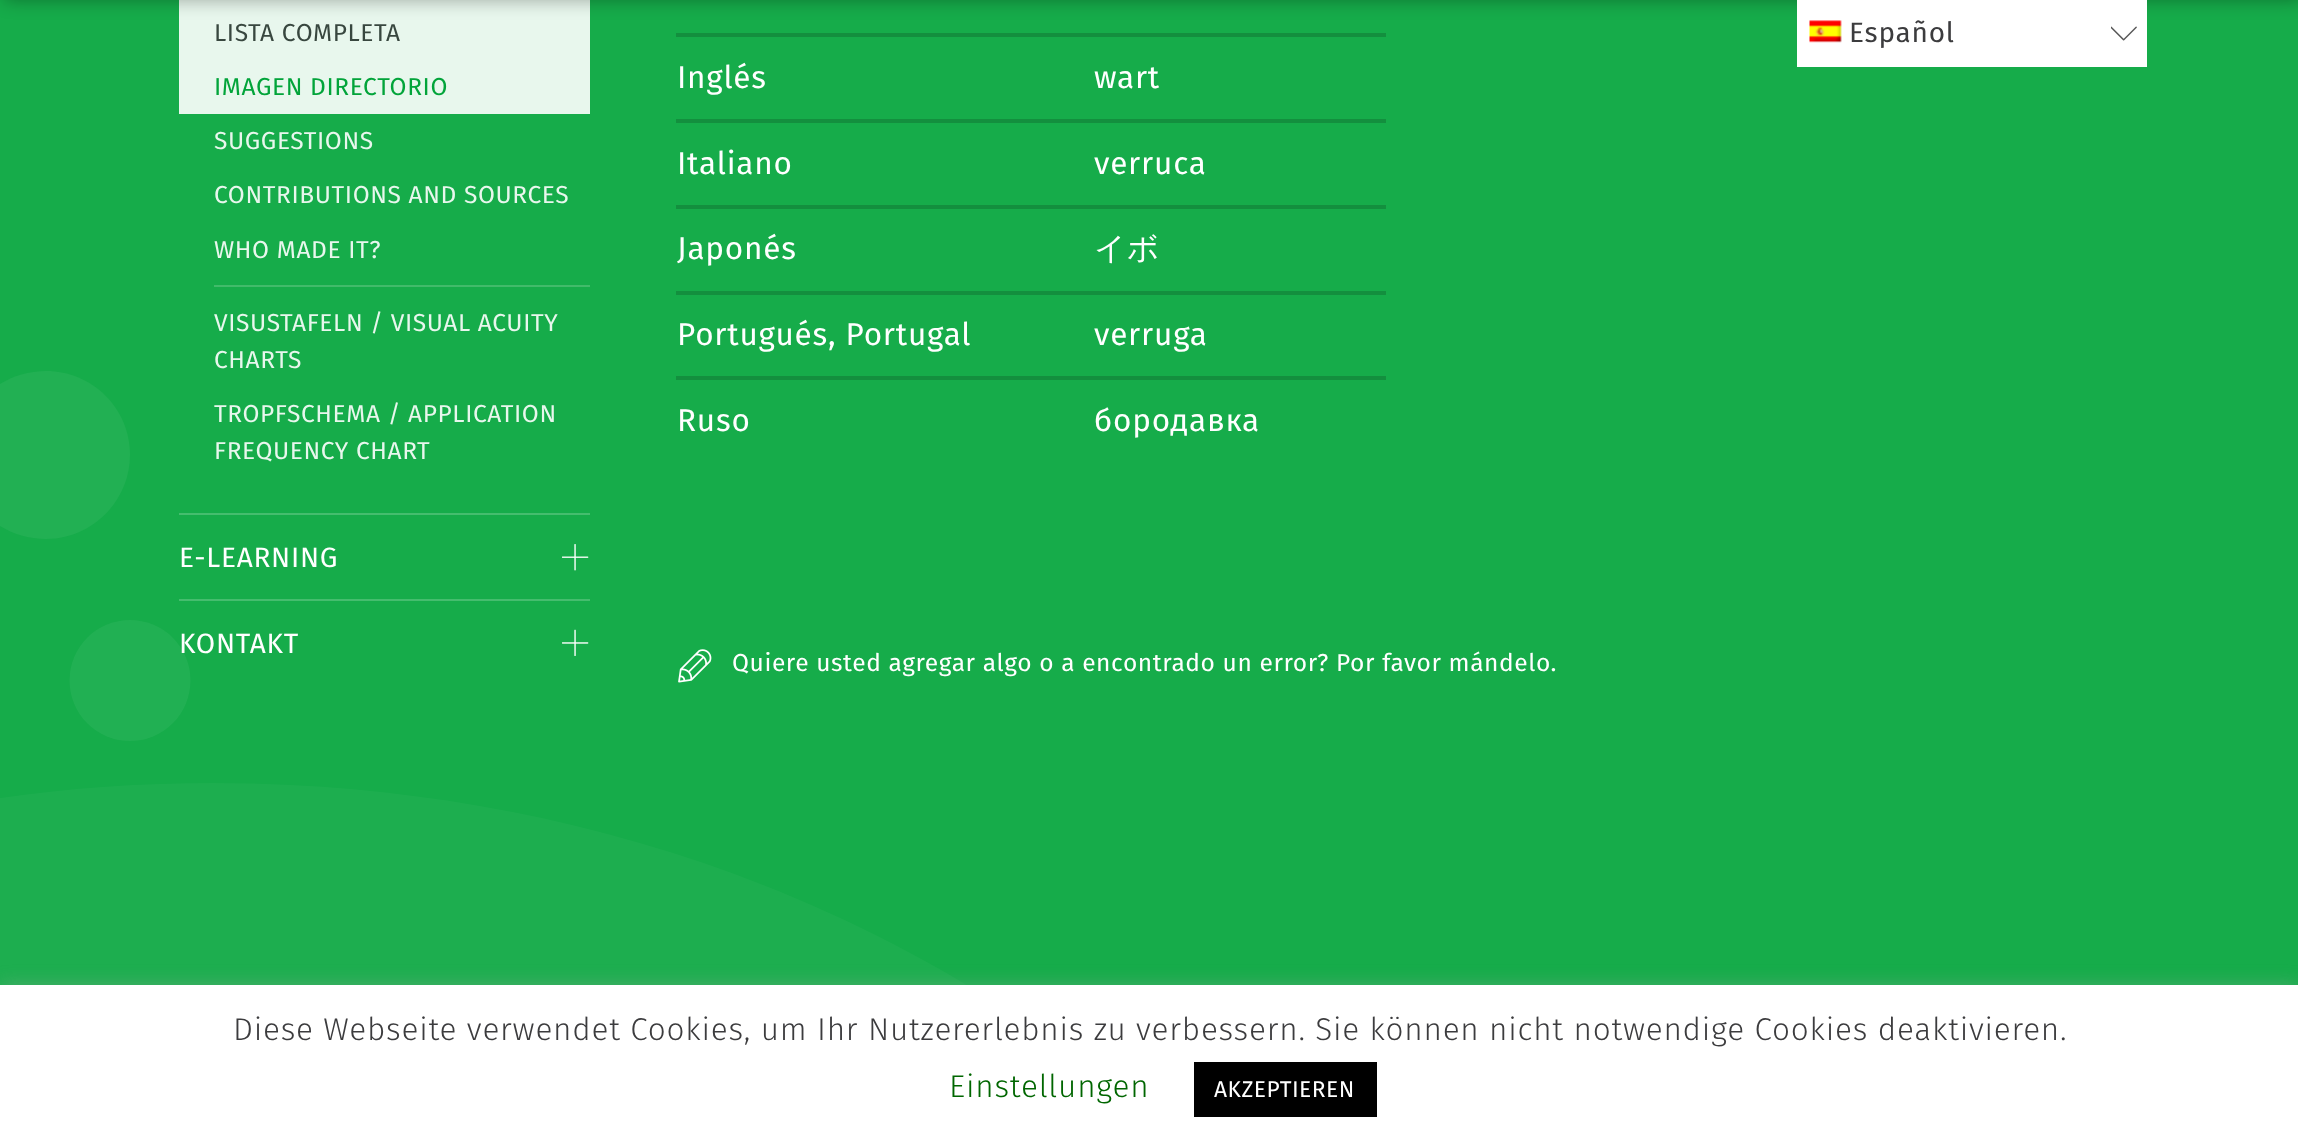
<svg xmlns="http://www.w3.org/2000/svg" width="2298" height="1146">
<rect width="100%" height="100%" fill="#16ac4a"/>
<rect x="179" y="513" width="411" height="2" fill="#45bd6e"/>
<rect x="179" width="411" height="114" fill="#e8f7ed"/>
<text x="214" y="41" style="font-family:Fira Sans;font-size:24.5px;letter-spacing:0.6px;fill:#38473f">LISTA COMPLETA</text>
<text x="214" y="95" style="font-family:Fira Sans;font-size:24.5px;letter-spacing:0.6px;fill:#02a43a">IMAGEN DIRECTORIO</text>
<text x="214" y="149" style="font-family:Fira Sans;font-size:24.5px;letter-spacing:0.6px;fill:#e8f7ed">SUGGESTIONS</text>
<text x="214" y="203" style="font-family:Fira Sans;font-size:24.5px;letter-spacing:0.6px;fill:#e8f7ed">CONTRIBUTIONS AND SOURCES</text>
<text x="214" y="258" style="font-family:Fira Sans;font-size:24.5px;letter-spacing:0.6px;fill:#e8f7ed">WHO MADE IT?</text>
<rect x="214" y="285" width="376" height="2" fill="#41bb6a"/>
<text x="214" y="331" style="font-family:Fira Sans;font-size:24.5px;letter-spacing:0.6px;fill:#e8f7ed">VISUSTAFELN / VISUAL ACUITY</text>
<text x="214" y="368" style="font-family:Fira Sans;font-size:24.5px;letter-spacing:0.6px;fill:#e8f7ed">CHARTS</text>
<text x="214" y="422" style="font-family:Fira Sans;font-size:24.5px;letter-spacing:0.6px;fill:#e8f7ed">TROPFSCHEMA / APPLICATION</text>
<text x="214" y="459" style="font-family:Fira Sans;font-size:24.5px;letter-spacing:0.6px;fill:#e8f7ed">FREQUENCY CHART</text>
<rect x="179" y="599" width="411" height="2" fill="#45bd6e"/>
<text x="179" y="567" style="font-family:Fira Sans;font-size:28px;letter-spacing:0.75px;fill:#fff">E-LEARNING</text>
<image x="562" y="544" width="27" height="27" href="media/1.png"/>
<text x="179" y="653" style="font-family:Fira Sans;font-size:28px;letter-spacing:0.75px;fill:#fff">KONTAKT</text>
<image x="562" y="629" width="27" height="27" href="media/2.png"/>
<rect x="676" y="33" width="710" height="4" fill="#138f3e"/>
<text x="677" y="88" style="font-family:Fira Sans;font-size:31.5px;letter-spacing:0.79px;fill:#fff">Inglés</text>
<rect x="676" y="119" width="710" height="4" fill="#138f3e"/>
<text x="1094" y="88" style="font-family:Fira Sans;font-size:31.5px;letter-spacing:0.79px;fill:#fff">wart</text>
<text x="677" y="174" style="font-family:Fira Sans;font-size:31.5px;letter-spacing:0.79px;fill:#fff">Italiano</text>
<rect x="676" y="205" width="710" height="4" fill="#138f3e"/>
<text x="1094" y="174" style="font-family:Fira Sans;font-size:31.5px;letter-spacing:0.79px;fill:#fff">verruca</text>
<text x="677" y="259" style="font-family:Fira Sans;font-size:31.5px;letter-spacing:0.79px;fill:#fff">Japonés</text>
<rect x="676" y="291" width="710" height="4" fill="#138f3e"/>
<text x="1094" y="259" style="font-family:WenQuanYi Zen Hei;font-size:31.5px;font-weight:500;letter-spacing:0.79px;fill:#fff">イボ</text>
<text x="677" y="345" style="font-family:Fira Sans;font-size:31.5px;letter-spacing:0.79px;fill:#fff">Portugués, Portugal</text>
<rect x="676" y="376" width="710" height="4" fill="#138f3e"/>
<text x="1094" y="345" style="font-family:Fira Sans;font-size:31.5px;letter-spacing:0.79px;fill:#fff">verruga</text>
<text x="677" y="431" style="font-family:Fira Sans;font-size:31.5px;letter-spacing:0.79px;fill:#fff">Ruso</text>
<text x="1094" y="431" style="font-family:Fira Sans;font-size:31.5px;letter-spacing:0.79px;fill:#fff">бородавка</text>
<image x="678" y="649" width="34" height="34" href="media/3.png"/>
<text x="732" y="671" style="font-family:Fira Sans;font-size:24.5px;letter-spacing:0.6px;fill:#fff">Quiere usted agregar algo o a encontrado un error? Por favor mándelo.</text>
<path d="M0 526c13 8 29 13 46 13c46 0 84-38 84-84c0-47-38-84-84-84c-17 0-33 5-46 13z" fill="#22b053" fill-rule="evenodd"/>
<circle cx="130" cy="680.5" r="60.5" fill="#ffffff0d"/>
<path d="M213 783c-73 0-144 5-213 15v252h1064c-225-166-524-267-851-267z" fill="#ffffff08" fill-rule="evenodd"/>
<rect x="4" y="-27" width="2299" height="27" fill="#00000054" filter="blur(9px)"/>
<rect x="1797" width="350" height="67" fill="#fff"/>
<image x="2111" y="26" width="26" height="15" href="media/4.png"/>
<image x="1809" y="20" width="33" height="23" href="media/5.png"/>
<text x="1849" y="42" style="font-family:Fira Sans;font-size:28px;letter-spacing:0.75px;fill:#3c3c3e">Español</text>
<rect y="984" width="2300" height="161" fill="#acabab4d" filter="blur(9px)"/>
<rect y="985" width="2298" height="161" fill="#fff"/>
<text x="233" y="1040" style="font-family:Fira Sans;font-size:31.5px;font-weight:300;letter-spacing:0.79px;fill:#3c3c3e">Diese Webseite verwendet Cookies, um Ihr Nutzererlebnis zu verbessern. Sie können nicht notwendige Cookies deaktivieren.</text>
<text x="949" y="1097" style="font-family:Fira Sans;font-size:31.5px;font-weight:300;letter-spacing:0.79px;fill:#060">Einstellungen</text>
<rect x="1194" y="1062" width="183" height="55" fill="#000"/>
<text x="1214" y="1097" style="font-family:Fira Sans;font-size:22.75px;letter-spacing:0.5px;fill:#fff">AKZEPTIEREN</text>
</svg>
